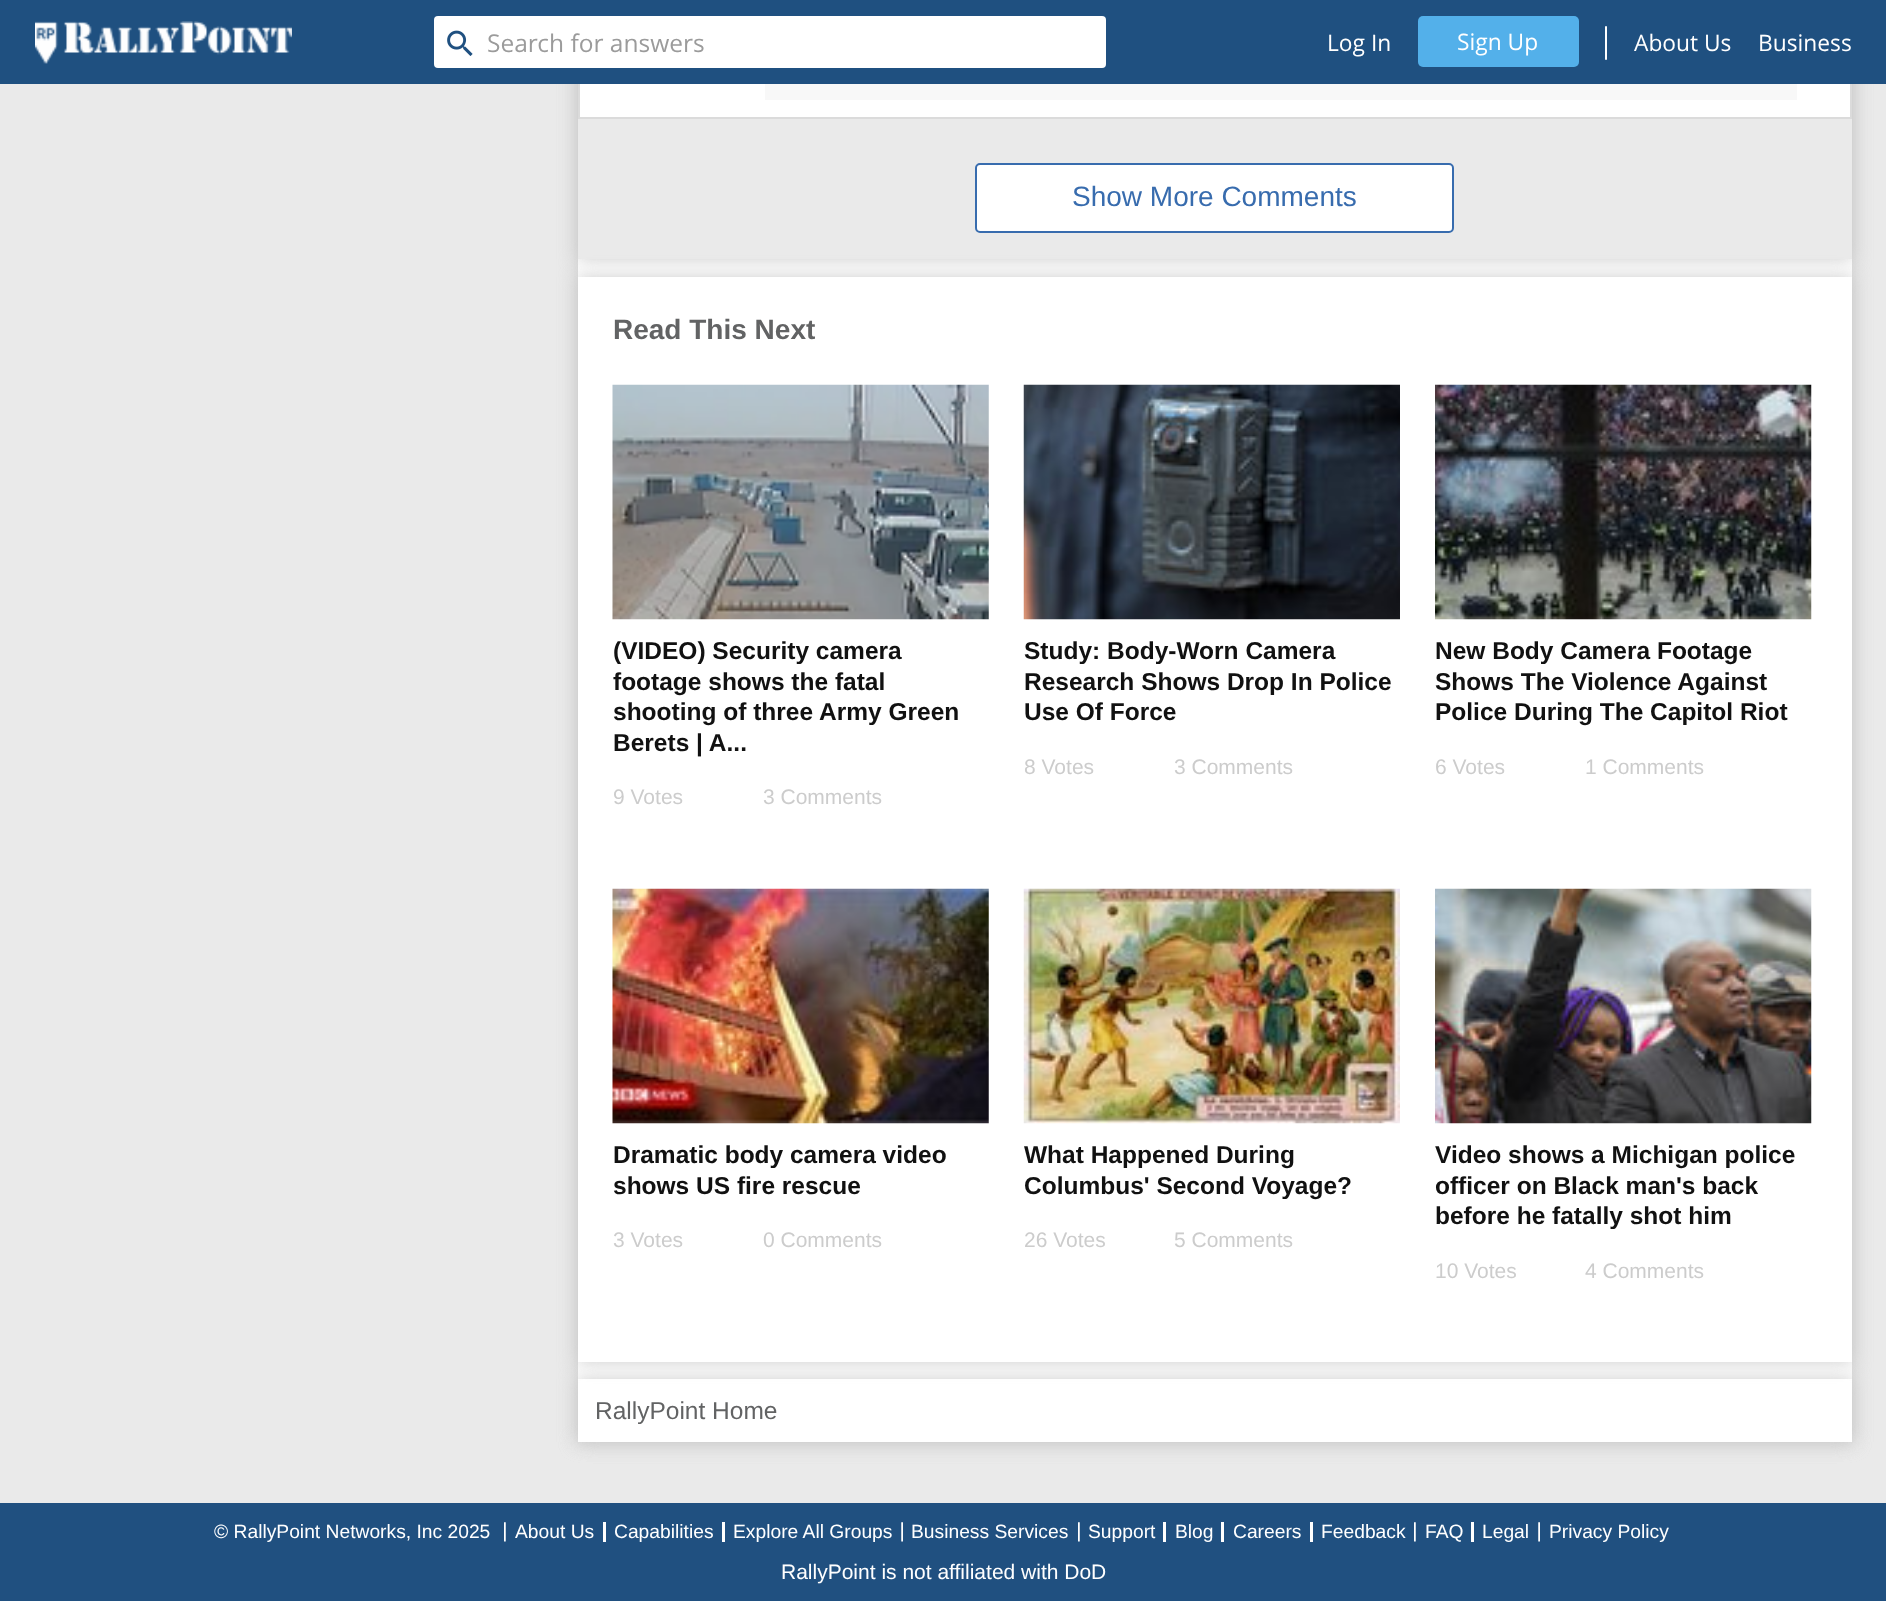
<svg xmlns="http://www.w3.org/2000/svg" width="1886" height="1601">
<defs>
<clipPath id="clip1"><path d="M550 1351h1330v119h-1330zm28 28h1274v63h-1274z" clip-rule="evenodd"/></clipPath>
</defs>
<rect width="100%" height="100%" fill="#eaeaea"/>
<rect x="578" y="-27" width="1274" height="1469" fill="#ccc" filter="blur(9px)"/>
<rect x="578" y="259" width="1274" height="1183" fill="#fff"/>
<rect x="578" y="-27" width="1274" height="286" fill="#ccc" filter="blur(9px)"/>
<rect x="580" y="84" width="1270" height="33" fill="#fff"/>
<rect x="579" y="-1" width="1272" height="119" fill="none" stroke="#dbdbdb" stroke-width="2"/>
<rect width="1886" height="84" fill="#1f5080"/>
<image x="35" y="21" width="257" height="43" href="media/1.png"/>
<rect x="434" y="16" width="672" height="52" rx="4" fill="#fff"/>
<image x="447" y="30" width="26" height="26" href="media/2.png"/>
<text x="487" y="52" style="font-family:Open Sans;font-size:24.5px;fill:#9b9b9b">Search for answers</text>
<text x="1327" y="51" style="font-family:Open Sans;font-size:22.75px;fill:#fff">Log In</text>
<rect x="1418" y="16" width="161" height="51" rx="5" fill="#53b0ea"/>
<text x="1457" y="50" style="font-family:Open Sans;font-size:22.75px;fill:#fff">Sign Up</text>
<rect x="1605" y="26" width="2" height="34" rx="1" fill="#fff"/>
<text x="1634" y="51" style="font-family:Open Sans;font-size:22.75px;fill:#fff">About Us</text>
<text x="1758" y="51" style="font-family:Open Sans;font-size:22.75px;fill:#fff">Business</text>
<rect x="578" y="119" width="1274" height="140" fill="#eaeaea"/>
<rect x="765" y="84" width="1032" height="16" fill="#f8f8f8"/>
<rect x="976" y="164" width="477" height="68" rx="4" fill="#fff" stroke="#386cae" stroke-width="2"/>
<text x="1072" y="206" style="font-family:Liberation Sans;font-size:28px;fill:#386cae">Show More Comments</text>
<rect x="578" y="277" width="1274" height="1085" fill="#ccc" filter="blur(9px)"/>
<g clip-path="url(#clip1)">
<rect x="578" y="1379" width="1274" height="63" fill="#ccc" filter="blur(9px)"/>
</g>
<rect x="578" y="277" width="1274" height="1085" fill="#fff"/>
<text x="613" y="339" style="font-family:Liberation Sans;font-size:28px;font-weight:bold;fill:#626364">Read This Next</text>
<image x="612" y="384" width="377" height="236" href="media/3.png"/>
<text x="613" y="659" style="font-family:Liberation Sans;font-size:24.5px;font-weight:bold;fill:#111">(VIDEO) Security camera</text>
<text x="613" y="690" style="font-family:Liberation Sans;font-size:24.5px;font-weight:bold;fill:#111">footage shows the fatal</text>
<text x="613" y="720" style="font-family:Liberation Sans;font-size:24.5px;font-weight:bold;fill:#111">shooting of three Army Green</text>
<text x="613" y="751" style="font-family:Liberation Sans;font-size:24.5px;font-weight:bold;fill:#111">Berets | A...</text>
<text x="613" y="804" style="font-family:Liberation Sans;font-size:21px;fill:#ccc">9 Votes</text>
<text x="763" y="804" style="font-family:Liberation Sans;font-size:21px;fill:#ccc">3 Comments</text>
<image x="1023" y="384" width="377" height="236" href="media/4.png"/>
<text x="1024" y="659" style="font-family:Liberation Sans;font-size:24.5px;font-weight:bold;fill:#111">Study: Body-Worn Camera</text>
<text x="1024" y="690" style="font-family:Liberation Sans;font-size:24.5px;font-weight:bold;fill:#111">Research Shows Drop In Police</text>
<text x="1024" y="720" style="font-family:Liberation Sans;font-size:24.5px;font-weight:bold;fill:#111">Use Of Force</text>
<text x="1024" y="774" style="font-family:Liberation Sans;font-size:21px;fill:#ccc">8 Votes</text>
<text x="1174" y="774" style="font-family:Liberation Sans;font-size:21px;fill:#ccc">3 Comments</text>
<image x="1435" y="384" width="377" height="236" href="media/5.png"/>
<text x="1435" y="659" style="font-family:Liberation Sans;font-size:24.5px;font-weight:bold;fill:#111">New Body Camera Footage</text>
<text x="1435" y="690" style="font-family:Liberation Sans;font-size:24.5px;font-weight:bold;fill:#111">Shows The Violence Against</text>
<text x="1435" y="720" style="font-family:Liberation Sans;font-size:24.5px;font-weight:bold;fill:#111">Police During The Capitol Riot</text>
<text x="1435" y="774" style="font-family:Liberation Sans;font-size:21px;fill:#ccc">6 Votes</text>
<text x="1585" y="774" style="font-family:Liberation Sans;font-size:21px;fill:#ccc">1 Comments</text>
<image x="612" y="888" width="377" height="236" href="media/6.png"/>
<text x="613" y="1163" style="font-family:Liberation Sans;font-size:24.5px;font-weight:bold;fill:#111">Dramatic body camera video</text>
<text x="613" y="1194" style="font-family:Liberation Sans;font-size:24.5px;font-weight:bold;fill:#111">shows US fire rescue</text>
<text x="613" y="1247" style="font-family:Liberation Sans;font-size:21px;fill:#ccc">3 Votes</text>
<text x="763" y="1247" style="font-family:Liberation Sans;font-size:21px;fill:#ccc">0 Comments</text>
<image x="1023" y="888" width="377" height="236" href="media/7.png"/>
<text x="1024" y="1163" style="font-family:Liberation Sans;font-size:24.5px;font-weight:bold;fill:#111">What Happened During</text>
<text x="1024" y="1194" style="font-family:Liberation Sans;font-size:24.5px;font-weight:bold;fill:#111">Columbus' Second Voyage?</text>
<text x="1024" y="1247" style="font-family:Liberation Sans;font-size:21px;fill:#ccc">26 Votes</text>
<text x="1174" y="1247" style="font-family:Liberation Sans;font-size:21px;fill:#ccc">5 Comments</text>
<image x="1435" y="888" width="377" height="236" href="media/8.png"/>
<text x="1435" y="1163" style="font-family:Liberation Sans;font-size:24.5px;font-weight:bold;fill:#111">Video shows a Michigan police</text>
<text x="1435" y="1194" style="font-family:Liberation Sans;font-size:24.5px;font-weight:bold;fill:#111">officer on Black man's back</text>
<text x="1435" y="1224" style="font-family:Liberation Sans;font-size:24.5px;font-weight:bold;fill:#111">before he fatally shot him</text>
<text x="1435" y="1278" style="font-family:Liberation Sans;font-size:21px;fill:#ccc">10 Votes</text>
<text x="1585" y="1278" style="font-family:Liberation Sans;font-size:21px;fill:#ccc">4 Comments</text>
<text x="595" y="1419" style="font-family:Liberation Sans;font-size:24.5px;fill:#626364">RallyPoint Home</text>
<rect y="1503" width="1886" height="98" fill="#205080"/>
<text x="214" y="1538" style="font-family:Liberation Sans;font-size:19.25px;fill:#fff">© RallyPoint Networks, Inc 2025</text>
<image x="504" y="1522" width="2" height="20" href="media/9.png"/>
<text x="515" y="1538" style="font-family:Liberation Sans;font-size:19.25px;fill:#fff">About Us</text>
<rect x="603" y="1522" width="3" height="20" fill="#fff"/>
<text x="614" y="1538" style="font-family:Liberation Sans;font-size:19.25px;fill:#fff">Capabilities</text>
<rect x="722" y="1522" width="3" height="20" fill="#fff"/>
<text x="733" y="1538" style="font-family:Liberation Sans;font-size:19.25px;fill:#fff">Explore All Groups</text>
<image x="901" y="1522" width="2" height="20" href="media/10.png"/>
<text x="911" y="1538" style="font-family:Liberation Sans;font-size:19.25px;fill:#fff">Business Services</text>
<image x="1078" y="1522" width="2" height="20" href="media/9.png"/>
<text x="1088" y="1538" style="font-family:Liberation Sans;font-size:19.25px;fill:#fff">Support</text>
<rect x="1163" y="1522" width="3" height="20" fill="#fff"/>
<text x="1175" y="1538" style="font-family:Liberation Sans;font-size:19.25px;fill:#fff">Blog</text>
<rect x="1221" y="1522" width="3" height="20" fill="#fff"/>
<text x="1233" y="1538" style="font-family:Liberation Sans;font-size:19.25px;fill:#fff">Careers</text>
<rect x="1310" y="1522" width="3" height="20" fill="#fff"/>
<text x="1321" y="1538" style="font-family:Liberation Sans;font-size:19.25px;fill:#fff">Feedback</text>
<image x="1414" y="1522" width="2" height="20" href="media/9.png"/>
<text x="1425" y="1538" style="font-family:Liberation Sans;font-size:19.25px;fill:#fff">FAQ</text>
<rect x="1471" y="1522" width="3" height="20" fill="#fff"/>
<text x="1482" y="1538" style="font-family:Liberation Sans;font-size:19.25px;fill:#fff">Legal</text>
<image x="1538" y="1522" width="2" height="20" href="media/10.png"/>
<text x="1549" y="1538" style="font-family:Liberation Sans;font-size:19.25px;fill:#fff">Privacy Policy</text>
<text x="781" y="1579" style="font-family:Liberation Sans;font-size:21px;fill:#fff">RallyPoint is not affiliated with DoD</text>
</svg>
